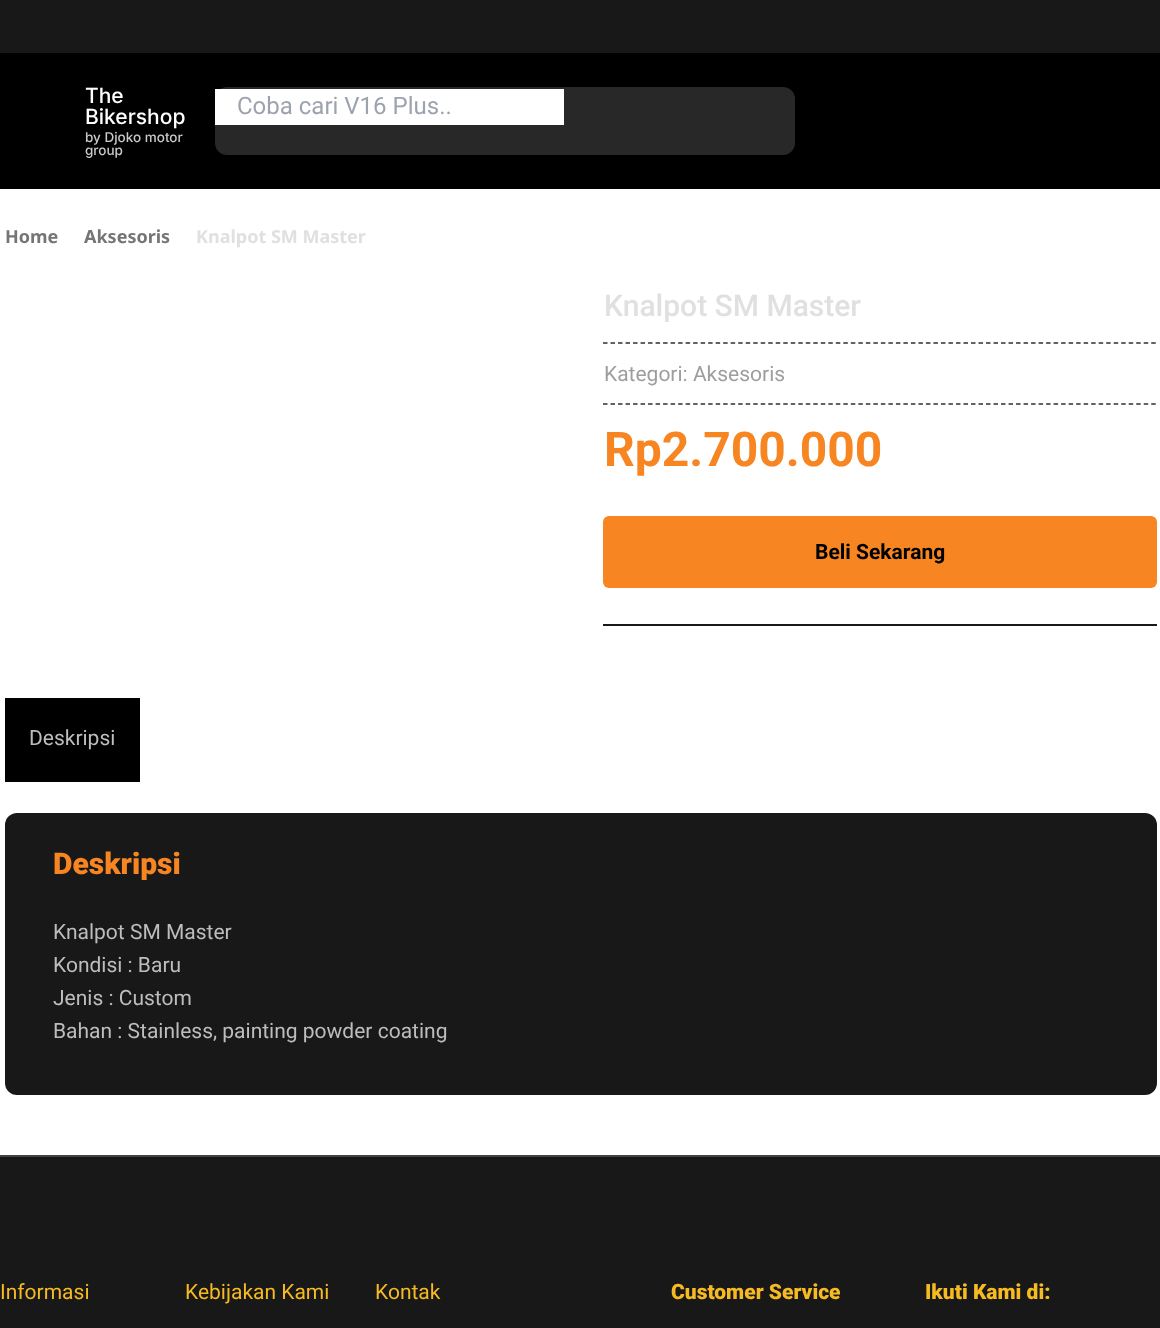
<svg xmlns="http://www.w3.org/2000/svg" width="1160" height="1328">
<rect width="100%" height="100%" fill="#fff"/>
<rect width="1160" height="53" fill="#181818"/>
<rect y="53" width="1160" height="136" fill="#000"/>
<text x="85" y="103" style="font-family:Inter;font-size:21px;font-weight:500;fill:#fff">The</text>
<text x="85" y="124" style="font-family:Inter;font-size:21px;font-weight:500;fill:#fff">Bikershop</text>
<text x="85" y="142" style="font-family:Inter;font-size:13.5px;font-weight:500;fill:#c9c9c9">by Djoko motor</text>
<text x="85" y="155" style="font-family:Inter;font-size:13.5px;font-weight:500;fill:#c9c9c9">group</text>
<rect x="215" y="87" width="580" height="68" rx="12" fill="#282828"/>
<rect x="215" y="89" width="349" height="36" fill="#fff"/>
<text x="237" y="114" style="font-family:Roboto;font-size:24px;fill:#9ca3af">Coba cari V16 Plus..</text>
<text x="5" y="243" style="font-family:Noto Sans;font-size:18px;font-weight:bold;fill:#757575">Home</text>
<text x="84" y="243" style="font-family:Noto Sans;font-size:18px;font-weight:bold;fill:#757575">Aksesoris</text>
<text x="196" y="243" style="font-family:Noto Sans;font-size:18px;font-weight:bold;fill:#e0e0e0">Knalpot SM Master</text>
<text x="604" y="316" style="font-family:Roboto;font-size:30px;font-weight:500;fill:#e0e0e0">Knalpot SM Master</text>
<path d="M603 343h553.5" fill="none" stroke="#313131" stroke-width="1.5" stroke-dasharray="4.5 3.01"/>
<path d="M603 404h553.5" fill="none" stroke="#313131" stroke-width="1.5" stroke-dasharray="4.5 3.01"/>
<text x="604" y="381" style="font-family:Roboto;font-size:21px;fill:#9e9e9e">Kategori: Aksesoris</text>
<text x="604" y="466" style="font-family:Roboto;font-size:48px;font-weight:bold;fill:#f68522">Rp2.700.000</text>
<rect x="603" y="624" width="554" height="2" fill="#181818"/>
<rect x="603" y="516" width="554" height="72" rx="6" fill="#f68522"/>
<text x="815" y="559" style="font-family:Roboto;font-size:21px;font-weight:bold;fill:#000">Beli Sekarang</text>
<rect x="5" y="698" width="135" height="84" fill="#000"/>
<text x="29" y="745" style="font-family:Roboto;font-size:21px;fill:#bdbdbd">Deskripsi</text>
<rect x="5" y="813" width="1152" height="282" rx="12" fill="#181818"/>
<text x="53" y="874" style="font-family:Roboto;font-size:30px;font-weight:900;fill:#f68522">Deskripsi</text>
<text x="53" y="939" style="font-family:Roboto;font-size:21px;fill:#bdbdbd">Knalpot SM Master</text>
<text x="53" y="972" style="font-family:Roboto;font-size:21px;fill:#bdbdbd">Kondisi : Baru</text>
<text x="53" y="1005" style="font-family:Roboto;font-size:21px;fill:#bdbdbd">Jenis : Custom</text>
<text x="53" y="1038" style="font-family:Roboto;font-size:21px;fill:#bdbdbd">Bahan : Stainless, painting powder coating</text>
<rect y="1157" width="1160" height="171" fill="#181818"/>
<rect y="1155" width="1160" height="2" fill="#424242"/>
<text x="0" y="1299" style="font-family:Roboto;font-size:21px;fill:#f6ba22">Informasi</text>
<text x="185" y="1299" style="font-family:Roboto;font-size:21px;fill:#f6ba22">Kebijakan Kami</text>
<text x="375" y="1299" style="font-family:Roboto;font-size:21px;fill:#f6ba22">Kontak</text>
<text x="671" y="1299" style="font-family:Roboto;font-size:21px;font-weight:900;fill:#f6ba22">Customer Service</text>
<text x="925" y="1299" style="font-family:Roboto;font-size:21px;font-weight:900;fill:#f6ba22">Ikuti Kami di:</text>
</svg>
